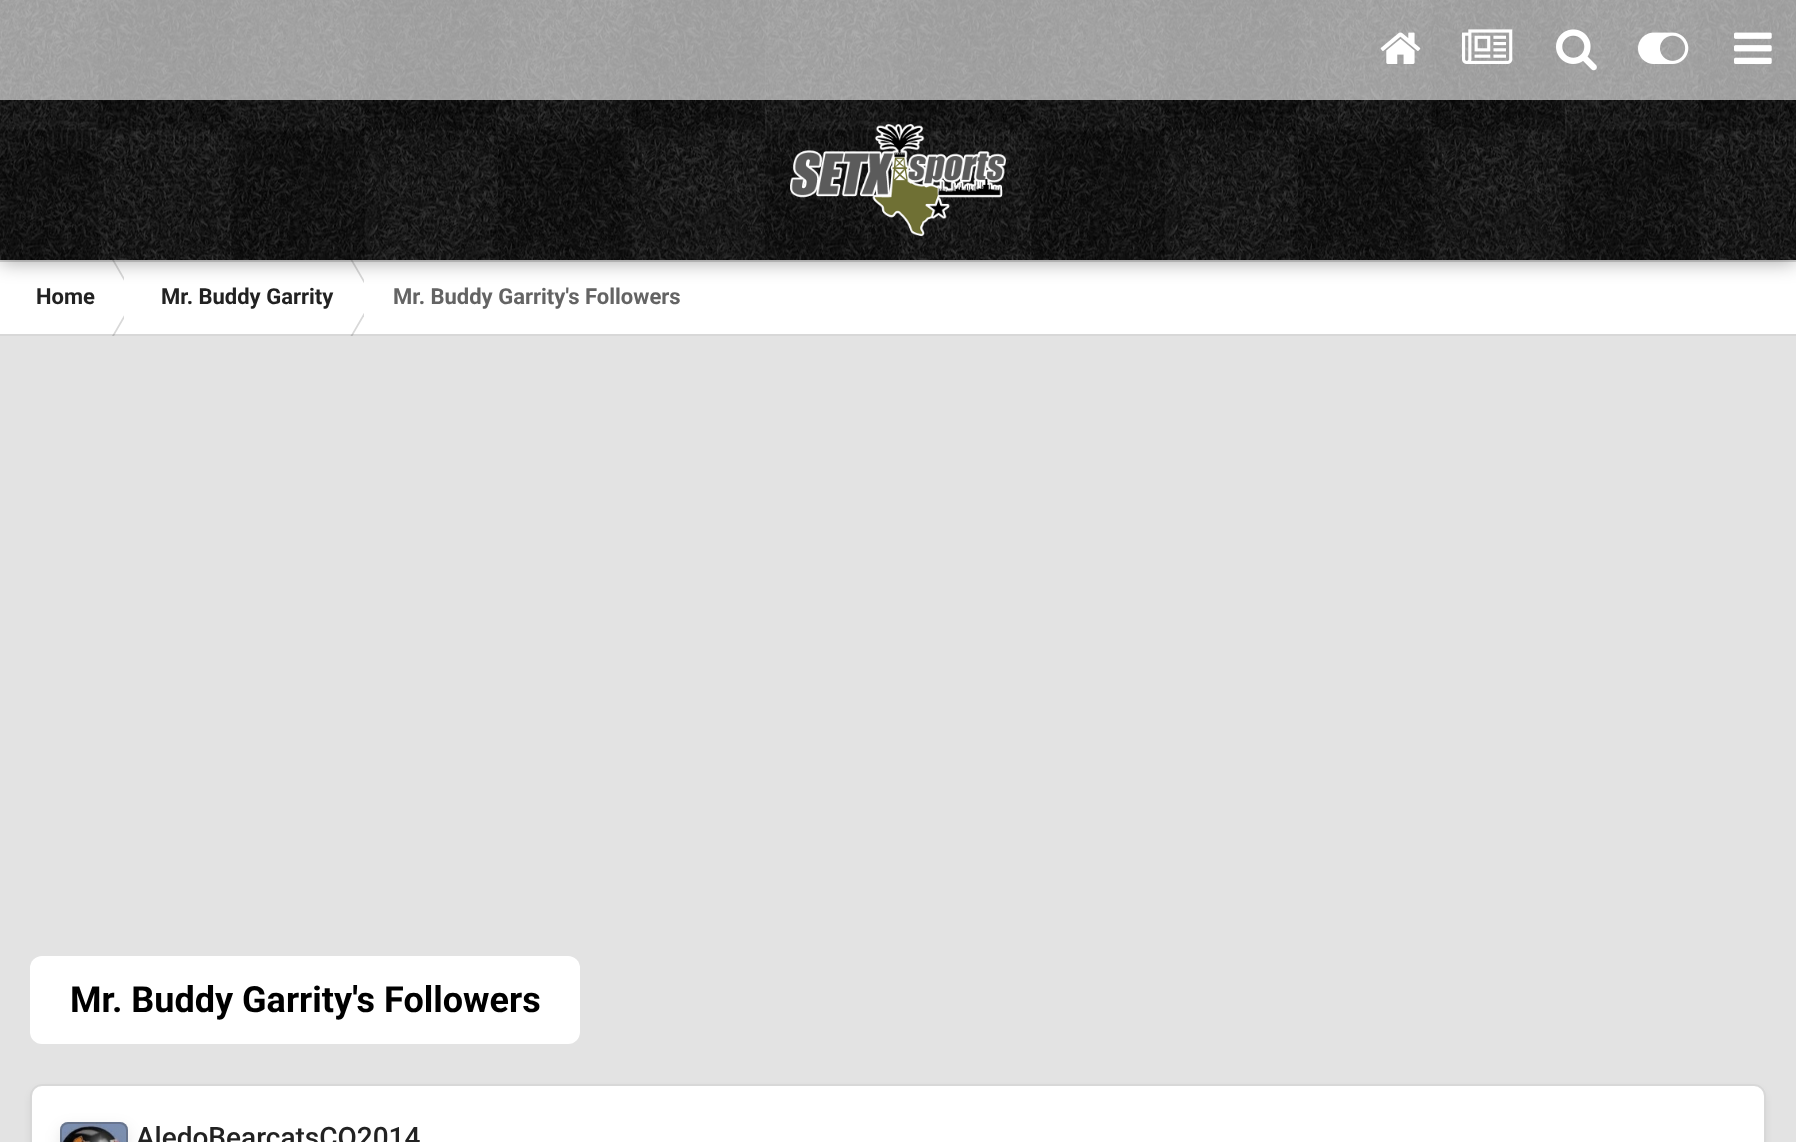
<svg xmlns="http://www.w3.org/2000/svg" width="1796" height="1142">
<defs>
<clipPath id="clip1"><rect y="260" width="124" height="76"/></clipPath>
<clipPath id="clip2"><rect x="124" y="260" width="240" height="76"/></clipPath>
<clipPath id="clip3"><path d="M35 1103h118v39h-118zm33 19h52c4.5 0 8 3.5 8 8v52c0 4.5-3.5 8-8 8h-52c-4.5 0-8-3.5-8-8v-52c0-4.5 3.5-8 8-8z" clip-rule="evenodd"/></clipPath>
</defs>
<rect width="100%" height="100%" fill="#e3e3e3"/>
<rect y="260" width="1796" height="76" fill="#fff"/>
<g clip-path="url(#clip1)">
<path d="M112 260h2l22 38h-2z" fill="#d8d8d8"/>
</g>
<g clip-path="url(#clip2)">
<path d="M350.5 260h2l22 38h-2z" fill="#d8d8d8"/>
</g>
<rect y="260" width="1796" height="2" fill="#3c3c3c33"/>
<rect y="2" width="1796" height="260" fill="#00000059" filter="blur(10px)"/>
<image x="0" y="0" width="1796" height="260" href="media/1.png"/>
<rect width="1796" height="100" fill="#ffffff99"/>
<image x="1380" y="32" width="41" height="32" href="media/2.png"/>
<image x="1462" y="29" width="51" height="35" href="media/3.png"/>
<image x="1556" y="29" width="41" height="42" href="media/4.png"/>
<image x="1638" y="32" width="51" height="32" href="media/5.png"/>
<image x="1734" y="32" width="38" height="32" href="media/6.png"/>
<image x="790" y="124" width="216" height="112" href="media/7.png"/>
<g clip-path="url(#clip1)">
<path d="M112 336h2l22-38h-2z" fill="#d8d8d8"/>
</g>
<g clip-path="url(#clip2)">
<path d="M350.5 336h2l22-38h-2z" fill="#d8d8d8"/>
</g>
<rect y="334" width="1796" height="2" fill="#3c3c3c33"/>
<text x="36" y="304" style="font-family:Roboto;font-size:22px;font-weight:bold;fill:#222">Home</text>
<text x="161" y="304" style="font-family:Roboto;font-size:22px;font-weight:bold;fill:#222">Mr. Buddy Garrity</text>
<text x="393" y="304" style="font-family:Roboto;font-size:22px;font-weight:bold;fill:#646464">Mr. Buddy Garrity's Followers</text>
<rect x="30" y="956" width="550" height="88" rx="12" fill="#fff"/>
<text x="70" y="1012" style="font-family:Roboto;font-size:36px;font-weight:bold;fill:#000">Mr. Buddy Garrity's Followers</text>
<rect x="32" y="1090" width="1732" height="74" rx="10" fill="#0000001a" filter="blur(4px)"/>
<rect x="30" y="1084" width="1736" height="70" rx="12" fill="#fff"/>
<rect x="31" y="1085" width="1734" height="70" rx="11" fill="none" stroke="#3c3c3c33" stroke-width="2"/>
<image x="60" y="1122" width="68" height="20" href="media/8.png"/>
<g clip-path="url(#clip3)">
<rect x="60" y="1128" width="68" height="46" rx="8" fill="#0000001a" filter="blur(8px)"/>
</g>
<rect x="61" y="1123" width="66" height="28" rx="7" fill="none" stroke="#3c3c3c4d" stroke-width="2"/>
<text x="136" y="1147" style="font-family:Roboto;font-size:28px;font-weight:500;fill:#222">AledoBearcatsCO2014</text>
</svg>
